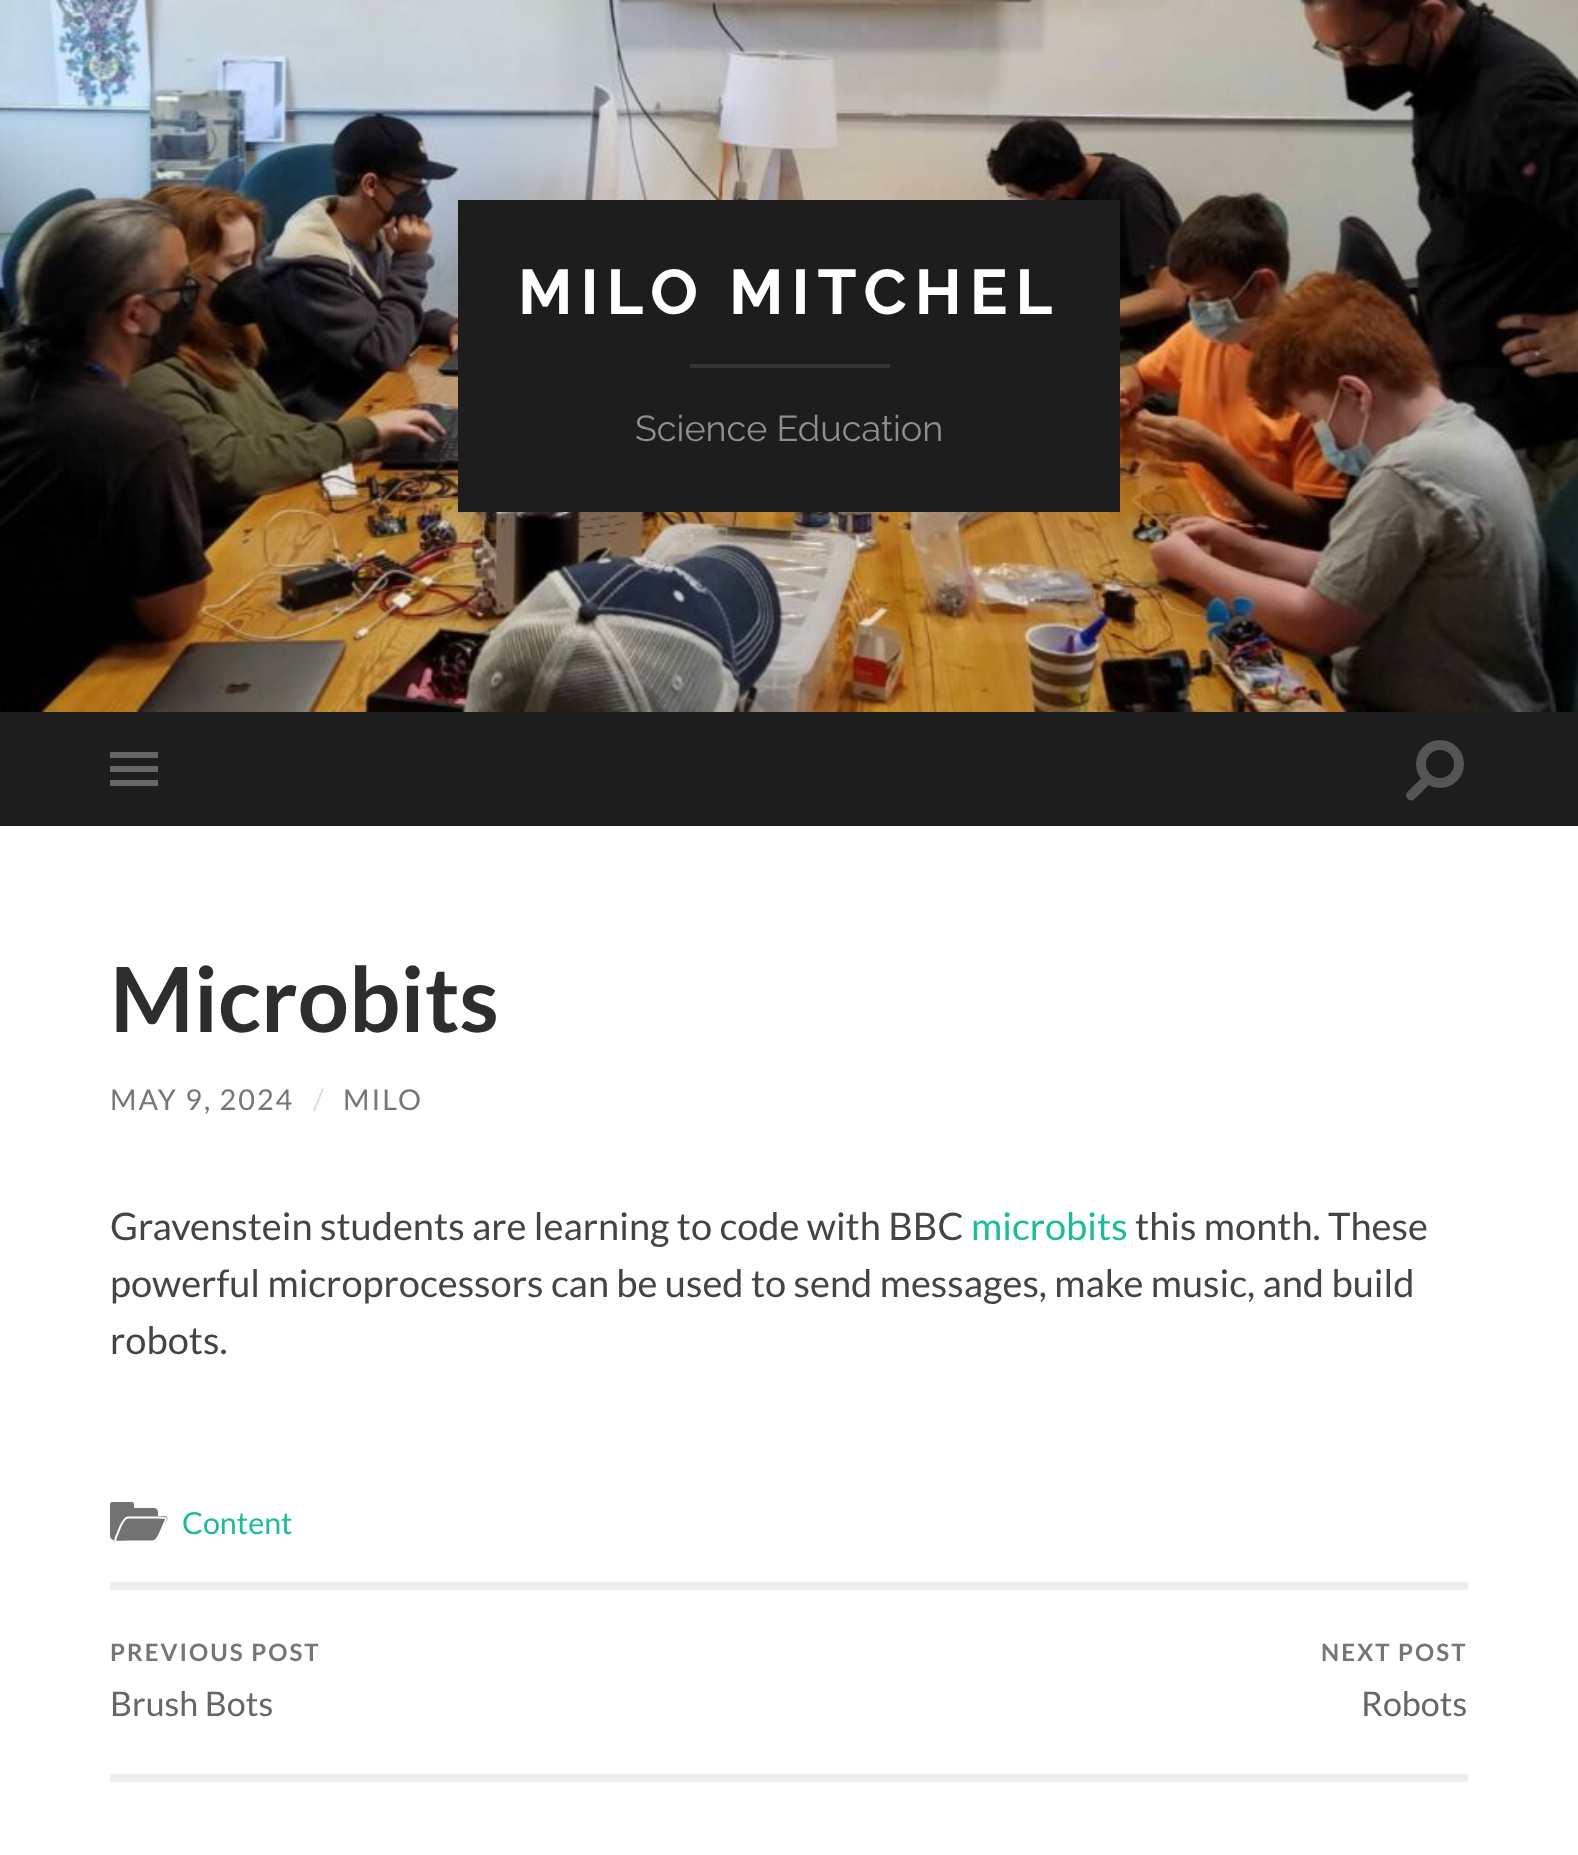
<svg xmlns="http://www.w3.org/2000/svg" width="1578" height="1855">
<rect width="100%" height="100%" fill="#fff"/>
<image x="0" y="0" width="1578" height="712" href="media/1.png"/>
<rect x="458" y="200" width="662" height="312" fill="#1d1d1d"/>
<text x="518" y="314" style="font-family:Raleway;font-size:63px;font-weight:100;letter-spacing:8px;fill:#fff">MILO MITCHEL</text>
<rect x="690" y="364" width="200" height="4" fill="#343434"/>
<text x="635" y="441" style="font-family:'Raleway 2';font-size:36px;font-weight:100;fill:#8e8e8e">Science Education</text>
<rect y="712" width="1578" height="114" fill="#1d1d1d"/>
<rect x="110" y="752" width="48" height="6" fill="#666"/>
<rect x="110" y="766" width="48" height="6" fill="#666"/>
<rect x="110" y="780" width="48" height="6" fill="#666"/>
<circle cx="1440" cy="764" r="24" fill="#555"/>
<circle cx="1440" cy="764" r="14" fill="#1d1d1d"/>
<path d="M1407 792.5l17-17l7 7c-3 3-16.5 17.5-19 18c-4 1-8-5-5-8z" fill="#555"/>
<text x="110" y="1032" style="font-family:Lato;font-size:90px;font-weight:bold;fill:#2d2d2d">Microbits</text>
<text x="110" y="1110" style="font-family:Lato;font-size:28.75px;letter-spacing:2px;fill:#767676">MAY 9, 2024</text>
<text x="313" y="1110" style="font-family:Lato;font-size:28.75px;letter-spacing:2px;fill:#ddd">/</text>
<text x="343" y="1110" style="font-family:Lato;font-size:28.75px;letter-spacing:2px;fill:#767676">MILO</text>
<text x="110" y="1240" style="font-family:Lato;font-size:38px;fill:#444">Gravenstein students are learning to code with BBC</text>
<text x="971" y="1240" style="font-family:Lato;font-size:38px;fill:#1abc9c">microbits</text>
<text x="1135" y="1240" style="font-family:Lato;font-size:38px;fill:#444">this month. These</text>
<text x="110" y="1297" style="font-family:Lato;font-size:38px;fill:#444">powerful microprocessors can be used to send messages, make music, and build</text>
<text x="110" y="1354" style="font-family:Lato;font-size:38px;fill:#444">robots.</text>
<path d="M110 1508h44c2 0 4 2 4 4v24c0 2-2 4-4 4h-40c-2 0-4-2-4-4z" fill="#727272"/>
<path d="M112 1502h20c1 0 2 1 2 2v4h-24v-4c0-1 1-2 2-2z" fill="#727272"/>
<path d="M129 1516h36c2 0 3 2 2 4l-9 18c-1 3-3 4-6 4h-36c-2 0-3-1-2-4l9-18c1-2 3-4 6-4z" fill="#727272"/>
<path d="M128 1517.5h30c10.5 0 9 0 5 9c-2 3.5-5 15-10 15h-24c-14.5 0-16.5 3-11-9c1.5-3.5 5-15 10-15z" fill="none" stroke="#fff" stroke-width="2"/>
<text x="182" y="1534" style="font-family:Lato;font-size:30.5px;fill:#1abc9c">Content</text>
<rect x="110" y="1582" width="1358" height="8" fill="#eee"/>
<rect x="110" y="1774" width="1358" height="8" fill="#eee"/>
<text x="110" y="1661" style="font-family:Lato;font-size:24px;font-weight:bold;letter-spacing:2px;fill:#767676">PREVIOUS POST</text>
<text x="110" y="1716" style="font-family:Lato;font-size:34px;fill:#666">Brush Bots</text>
<text x="1321" y="1661" style="font-family:Lato;font-size:24px;font-weight:bold;letter-spacing:2px;fill:#767676">NEXT POST</text>
<text x="1361" y="1716" style="font-family:Lato;font-size:34px;fill:#666">Robots</text>
</svg>
